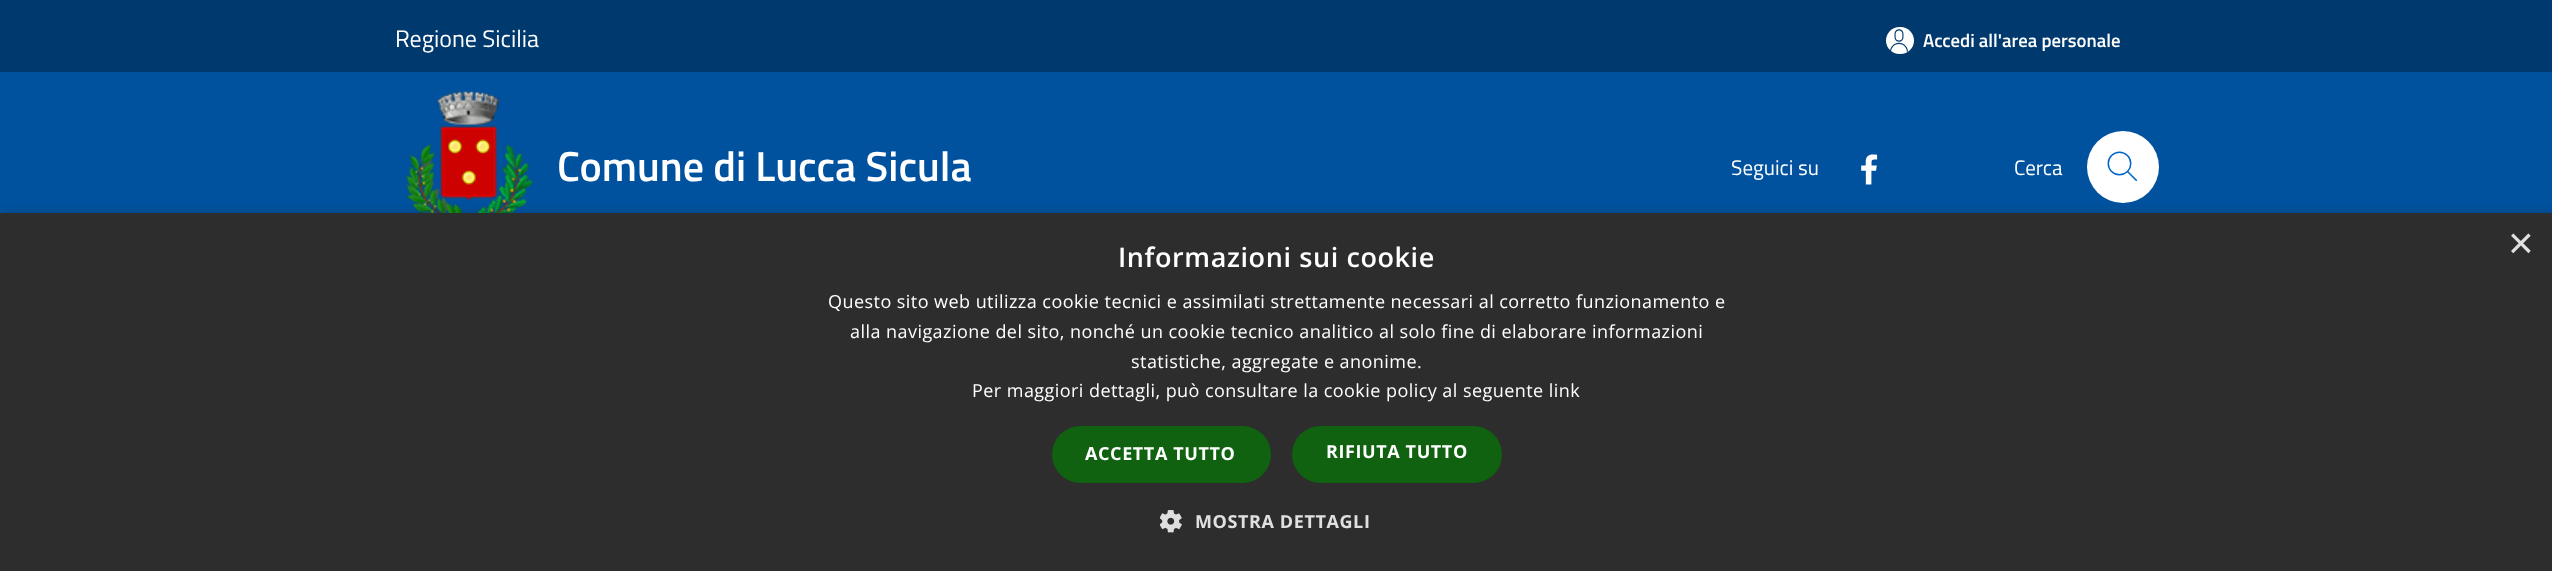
<svg xmlns="http://www.w3.org/2000/svg" width="2552" height="571">
<rect width="100%" height="100%" fill="#00396e"/>
<text x="395" y="47" style="font-family:Titillium Web;font-size:24px;fill:#fff">Regione Sicilia</text>
<rect x="1886" y="27" width="28" height="27" rx="13.5" fill="#fff"/>
<image x="1890" y="29" width="18" height="23" href="media/1.png"/>
<text x="1923" y="47" style="font-family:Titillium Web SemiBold;font-size:18.75px;font-weight:600;fill:#fff">Accedi all'area personale</text>
<rect y="72" width="2552" height="141" fill="#00529e"/>
<image x="406" y="91" width="127" height="122" href="media/2.png"/>
<text x="557" y="181" style="font-family:Titillium Web SemiBold;font-size:42px;font-weight:600;fill:#fff">Comune di Lucca Sicula</text>
<text x="1731" y="175" style="font-family:Titillium Web;font-size:21px;fill:#fff">Seguici su</text>
<image x="1861" y="154" width="17" height="31" href="media/3.png"/>
<text x="2014" y="175" style="font-family:Titillium Web;font-size:21px;fill:#fff">Cerca</text>
<circle cx="2123" cy="167" r="36" fill="#fff"/>
<image x="2107" y="151" width="31" height="31" href="media/4.png"/>
<rect x="2" y="216" width="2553" height="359" fill="#00000059" filter="blur(6px)"/>
<rect y="213" width="2552" height="358" fill="#2d2d2d"/>
<text x="2508" y="258" style="font-family:Liberation Sans;font-size:44px;fill:#e0e0e0">×</text>
<text x="1118" y="267" style="font-family:Open Sans;font-size:27px;font-weight:600;letter-spacing:0.6px;fill:#fff">Informazioni sui cookie</text>
<text x="828" y="308" style="font-family:Open Sans;font-size:18px;letter-spacing:0.45px;fill:#fff">Questo sito web utilizza cookie tecnici e assimilati strettamente necessari al corretto funzionamento e</text>
<text x="850" y="338" style="font-family:Open Sans;font-size:18px;letter-spacing:0.45px;fill:#fff">alla navigazione del sito, nonché un cookie tecnico analitico al solo fine di elaborare informazioni</text>
<text x="1131" y="368" style="font-family:Open Sans;font-size:18px;letter-spacing:0.45px;fill:#fff">statistiche, aggregate e anonime.</text>
<text x="972" y="397" style="font-family:Open Sans;font-size:18px;letter-spacing:0.45px;fill:#fff">Per maggiori dettagli, può consultare la cookie policy al seguente link</text>
<rect x="1052" y="426" width="219" height="57" rx="28.5" fill="#106110"/>
<text x="1085" y="460" style="font-family:Open Sans;font-size:18px;font-weight:bold;letter-spacing:0.6px;fill:#fff">ACCETTA TUTTO</text>
<rect x="1292" y="426" width="210" height="57" rx="28.5" fill="#106110"/>
<text x="1326" y="458" style="font-family:Open Sans;font-size:18px;font-weight:bold;letter-spacing:0.6px;fill:#fff">RIFIUTA TUTTO</text>
<image x="1160" y="510" width="22" height="23" href="media/5.png"/>
<text x="1195" y="528" style="font-family:Open Sans;font-size:18px;font-weight:bold;letter-spacing:0.6px;fill:#e0e0e0">MOSTRA DETTAGLI</text>
</svg>
